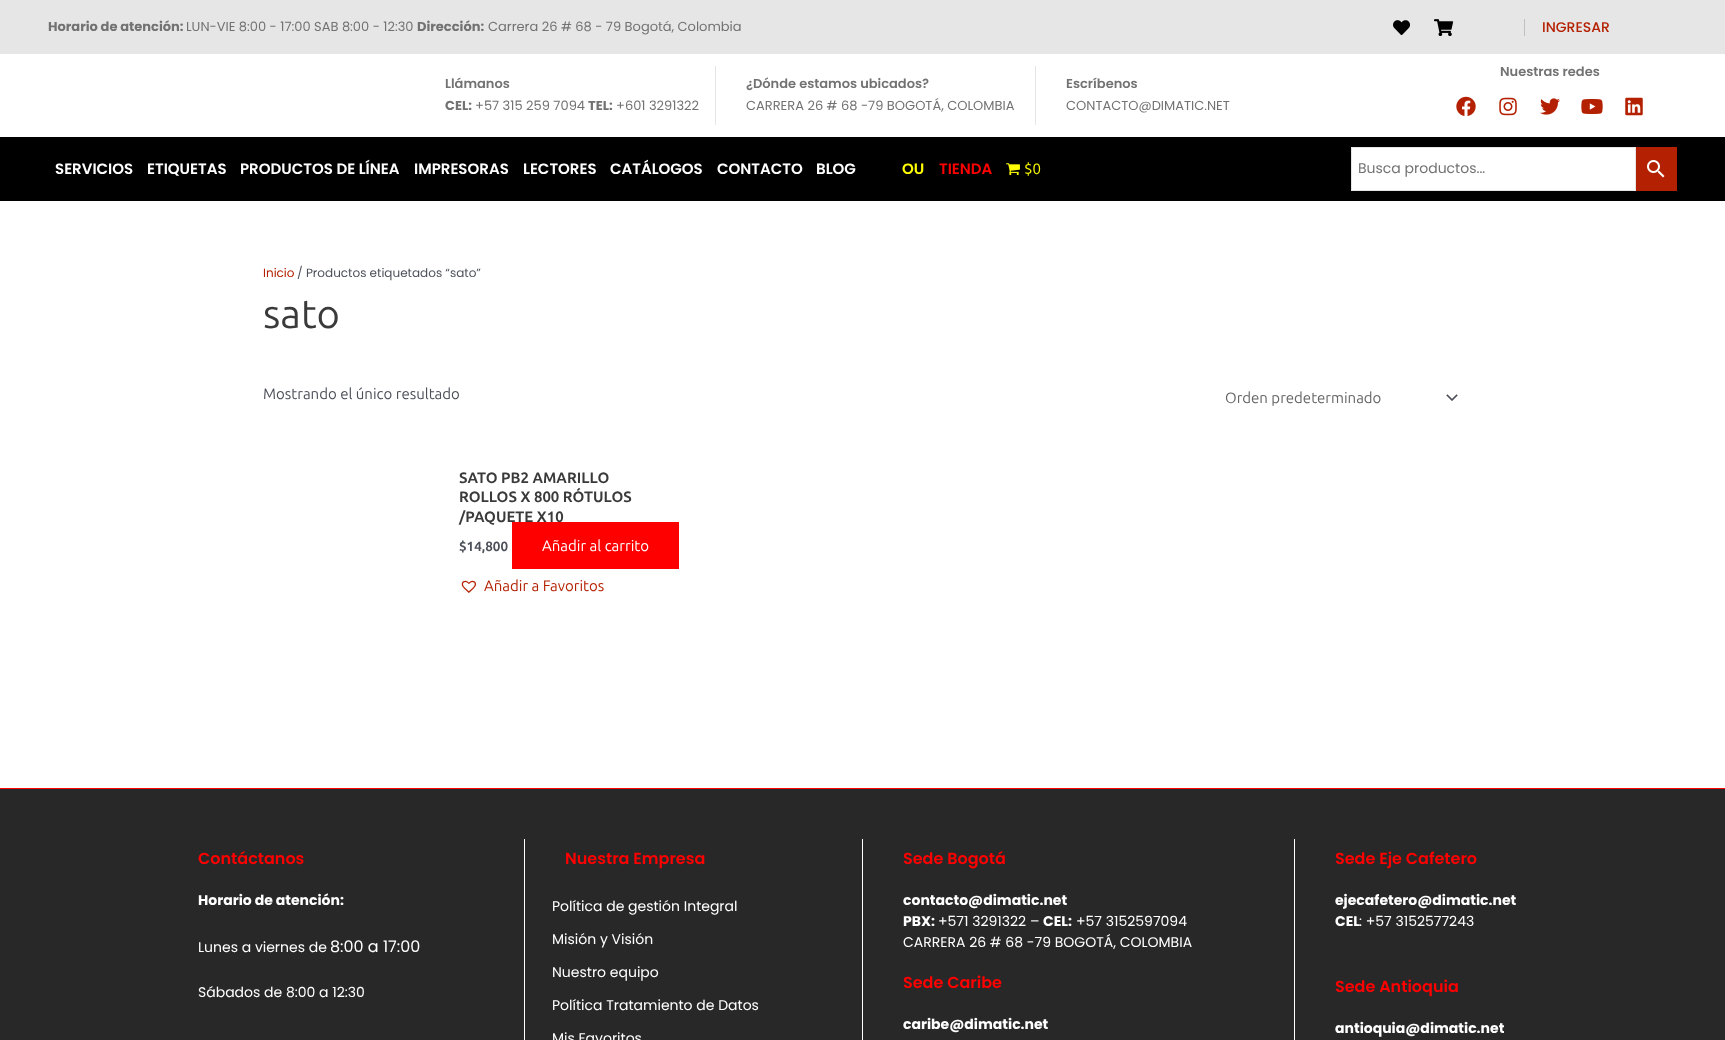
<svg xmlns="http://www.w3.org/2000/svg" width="1725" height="1040">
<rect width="100%" height="100%" fill="#fff"/>
<rect width="1725" height="54" fill="#e6e6e6"/>
<text x="48" y="31" style="font-family:Poppins;font-size:13px;font-weight:bold;fill:#727272">Horario de atención:</text>
<text x="186" y="31" style="font-family:Poppins;font-size:13px;fill:#727272">LUN-VIE 8:00 - 17:00 SAB 8:00 - 12:30</text>
<text x="417" y="31" style="font-family:Poppins;font-size:13px;font-weight:bold;fill:#727272">Dirección:</text>
<text x="488" y="31" style="font-family:Poppins;font-size:13px;fill:#727272">Carrera 26 # 68 - 79 Bogotá, Colombia</text>
<rect x="1524" y="19" width="1" height="17" fill="#c0c0c0"/>
<image x="1393" y="20" width="17" height="15" href="media/1.png"/>
<image x="1434" y="19" width="20" height="17" href="media/2.png"/>
<text x="1542" y="32" style="font-family:Poppins;font-size:14px;font-weight:500;fill:#b42102">INGRESAR</text>
<text x="1500" y="76" style="font-family:Poppins;font-size:13px;font-weight:600;fill:#727272">Nuestras redes</text>
<image x="1456" y="96" width="20" height="20" href="media/3.png"/>
<image x="1499" y="97" width="18" height="19" href="media/4.png"/>
<image x="1540" y="98" width="20" height="17" href="media/5.png"/>
<image x="1581" y="99" width="22" height="15" href="media/6.png"/>
<image x="1625" y="97" width="18" height="19" href="media/7.png"/>
<rect x="715" y="66" width="1" height="59" fill="#e6e6e6"/>
<text x="445" y="88" style="font-family:Poppins;font-size:13px;font-weight:600;fill:#727272">Llámanos</text>
<text x="445" y="110" style="font-family:Poppins;font-size:13px;font-weight:bold;fill:#727272">CEL:</text>
<text x="475" y="110" style="font-family:Poppins;font-size:13px;fill:#727272">+57 315 259 7094</text>
<text x="588" y="110" style="font-family:Poppins;font-size:13px;font-weight:bold;fill:#727272">TEL:</text>
<text x="616" y="110" style="font-family:Poppins;font-size:13px;fill:#727272">+601 3291322</text>
<rect x="1035" y="66" width="1" height="59" fill="#e6e6e6"/>
<text x="746" y="88" style="font-family:Poppins;font-size:13px;font-weight:600;fill:#727272">¿Dónde estamos ubicados?</text>
<text x="746" y="110" style="font-family:Poppins;font-size:13px;fill:#727272">CARRERA 26 # 68 -79 BOGOTÁ, COLOMBIA</text>
<text x="1066" y="88" style="font-family:Poppins;font-size:13px;font-weight:600;fill:#727272">Escríbenos</text>
<text x="1066" y="110" style="font-family:Poppins;font-size:13px;fill:#727272">CONTACTO@DIMATIC.NET</text>
<rect y="137" width="1725" height="64" fill="#000"/>
<text x="55" y="174" style="font-family:Poppins;font-size:15px;font-weight:600;fill:#fff">SERVICIOS</text>
<text x="147" y="174" style="font-family:Poppins;font-size:15px;font-weight:600;fill:#fff">ETIQUETAS</text>
<text x="240" y="174" style="font-family:Poppins;font-size:15px;font-weight:600;fill:#fff">PRODUCTOS DE LÍNEA</text>
<text x="414" y="174" style="font-family:Poppins;font-size:15px;font-weight:600;fill:#fff">IMPRESORAS</text>
<text x="523" y="174" style="font-family:Poppins;font-size:15px;font-weight:600;fill:#fff">LECTORES</text>
<text x="610" y="174" style="font-family:Poppins;font-size:15px;font-weight:600;fill:#fff">CATÁLOGOS</text>
<text x="717" y="174" style="font-family:Poppins;font-size:15px;font-weight:600;fill:#fff">CONTACTO</text>
<text x="816" y="174" style="font-family:Poppins;font-size:15px;font-weight:600;fill:#fff">BLOG</text>
<text x="902" y="174" style="font-family:Poppins;font-size:15px;font-weight:600;fill:#ff0">OU</text>
<text x="939" y="174" style="font-family:Poppins;font-size:15px;font-weight:600;fill:#f00">TIENDA</text>
<image x="1006" y="163" width="14" height="13" href="media/8.png"/>
<text x="1024" y="174" style="font-family:Ubuntu;font-size:15px;fill:#ff0">$0</text>
<rect x="1351.5" y="147.5" width="284" height="43" fill="#fff" stroke="#e5e5e5"/>
<text x="1358" y="173" style="font-family:Poppins;font-size:14px;fill:#727272">Busca productos...</text>
<rect x="1636" y="147" width="41" height="44" fill="#b42102"/>
<image x="1647" y="160" width="18" height="18" href="media/9.png"/>
<text x="263" y="277" style="font-family:Poppins;font-size:12px;fill:#b42102">Inicio</text>
<text x="297" y="277" style="font-family:Poppins;font-size:12px;fill:#4b4f58">/ Productos etiquetados “sato”</text>
<text x="263" y="328" style="font-family:Ubuntu;font-size:40px;fill:#3a3a3a">sato</text>
<text x="263" y="399" style="font-family:Ubuntu;font-size:15px;fill:#4b4f58">Mostrando el único resultado</text>
<image x="1446" y="394" width="12" height="7" href="media/10.png"/>
<text x="1225" y="403" style="font-family:Ubuntu;font-size:15px;fill:#666">Orden predeterminado</text>
<text x="459" y="483" style="font-family:Ubuntu;font-size:15px;font-weight:bold;fill:#3a3a3a">SATO PB2 AMARILLO</text>
<text x="459" y="502" style="font-family:Ubuntu;font-size:15px;font-weight:bold;fill:#3a3a3a">ROLLOS X 800 RÓTULOS</text>
<text x="459" y="522" style="font-family:Ubuntu;font-size:15px;font-weight:bold;fill:#3a3a3a">/PAQUETE X10</text>
<text x="459" y="551" style="font-family:Ubuntu;font-size:13.5px;font-weight:bold;fill:#4b4f58">$14,800</text>
<rect x="512" y="522" width="167" height="47" fill="#f00"/>
<text x="542" y="551" style="font-family:Ubuntu;font-size:15px;fill:#fff">Añadir al carrito</text>
<image x="461" y="580" width="15" height="13" href="media/11.png"/>
<text x="484" y="591" style="font-family:Ubuntu;font-size:15px;fill:#b42102">Añadir a Favoritos</text>
<rect y="789" width="1725" height="251" fill="#282828"/>
<rect y="788" width="1725" height="1" fill="#f00"/>
<rect x="524" y="839" width="1" height="201" fill="#fff"/>
<text x="198" y="864" style="font-family:Poppins;font-size:16px;font-weight:600;fill:#f00">Contáctanos</text>
<text x="198" y="905" style="font-family:Poppins;font-size:14px;font-weight:bold;fill:#fff">Horario de atención:</text>
<text x="198" y="952" style="font-family:Poppins;font-size:14px;fill:#fff">Lunes a viernes de</text>
<text x="330" y="952" style="font-family:Poppins;font-size:16px;fill:#fff">8:00 a 17:00</text>
<text x="198" y="997" style="font-family:Poppins;font-size:14px;fill:#fff">Sábados de 8:00 a 12:30</text>
<rect x="862" y="839" width="1" height="201" fill="#fff"/>
<text x="565" y="864" style="font-family:Poppins;font-size:16px;font-weight:600;fill:#f00">Nuestra Empresa</text>
<text x="552" y="911" style="font-family:Poppins;font-size:14px;fill:#fff">Política de gestión Integral</text>
<text x="552" y="944" style="font-family:Poppins;font-size:14px;fill:#fff">Misión y Visión</text>
<text x="552" y="977" style="font-family:Poppins;font-size:14px;fill:#fff">Nuestro equipo</text>
<text x="552" y="1010" style="font-family:Poppins;font-size:14px;fill:#fff">Política Tratamiento de Datos</text>
<text x="552" y="1043" style="font-family:Poppins;font-size:14px;fill:#fff">Mis Favoritos</text>
<rect x="1294" y="839" width="1" height="201" fill="#fff"/>
<text x="903" y="864" style="font-family:Poppins;font-size:16px;font-weight:600;fill:#f00">Sede Bogotá</text>
<text x="903" y="905" style="font-family:Poppins;font-size:14px;font-weight:bold;fill:#fff">contacto@dimatic.net</text>
<text x="903" y="926" style="font-family:Poppins;font-size:14px;font-weight:bold;fill:#fff">PBX:</text>
<text x="938" y="926" style="font-family:Poppins;font-size:14px;fill:#fff">+571 3291322 –</text>
<text x="1043" y="926" style="font-family:Poppins;font-size:14px;font-weight:bold;fill:#fff">CEL:</text>
<text x="1076" y="926" style="font-family:Poppins;font-size:14px;fill:#fff">+57 3152597094</text>
<text x="903" y="947" style="font-family:Poppins;font-size:14px;fill:#fff">CARRERA 26 # 68 -79 BOGOTÁ, COLOMBIA</text>
<text x="903" y="988" style="font-family:Poppins;font-size:16px;font-weight:600;fill:#f00">Sede Caribe</text>
<text x="903" y="1029" style="font-family:Poppins;font-size:14px;font-weight:bold;fill:#fff">caribe@dimatic.net</text>
<text x="1335" y="864" style="font-family:Poppins;font-size:16px;font-weight:600;fill:#f00">Sede Eje Cafetero</text>
<text x="1335" y="905" style="font-family:Poppins;font-size:14px;font-weight:bold;fill:#fff">ejecafetero@dimatic.net</text>
<text x="1335" y="926" style="font-family:Poppins;font-size:14px;font-weight:bold;fill:#fff">CEL</text>
<text x="1359" y="926" style="font-family:Poppins;font-size:14px;fill:#fff">: +57 3152577243</text>
<text x="1335" y="992" style="font-family:Poppins;font-size:16px;font-weight:600;fill:#f00">Sede Antioquia</text>
<text x="1335" y="1033" style="font-family:Poppins;font-size:14px;font-weight:bold;fill:#fff">antioquia@dimatic.net</text>
</svg>
